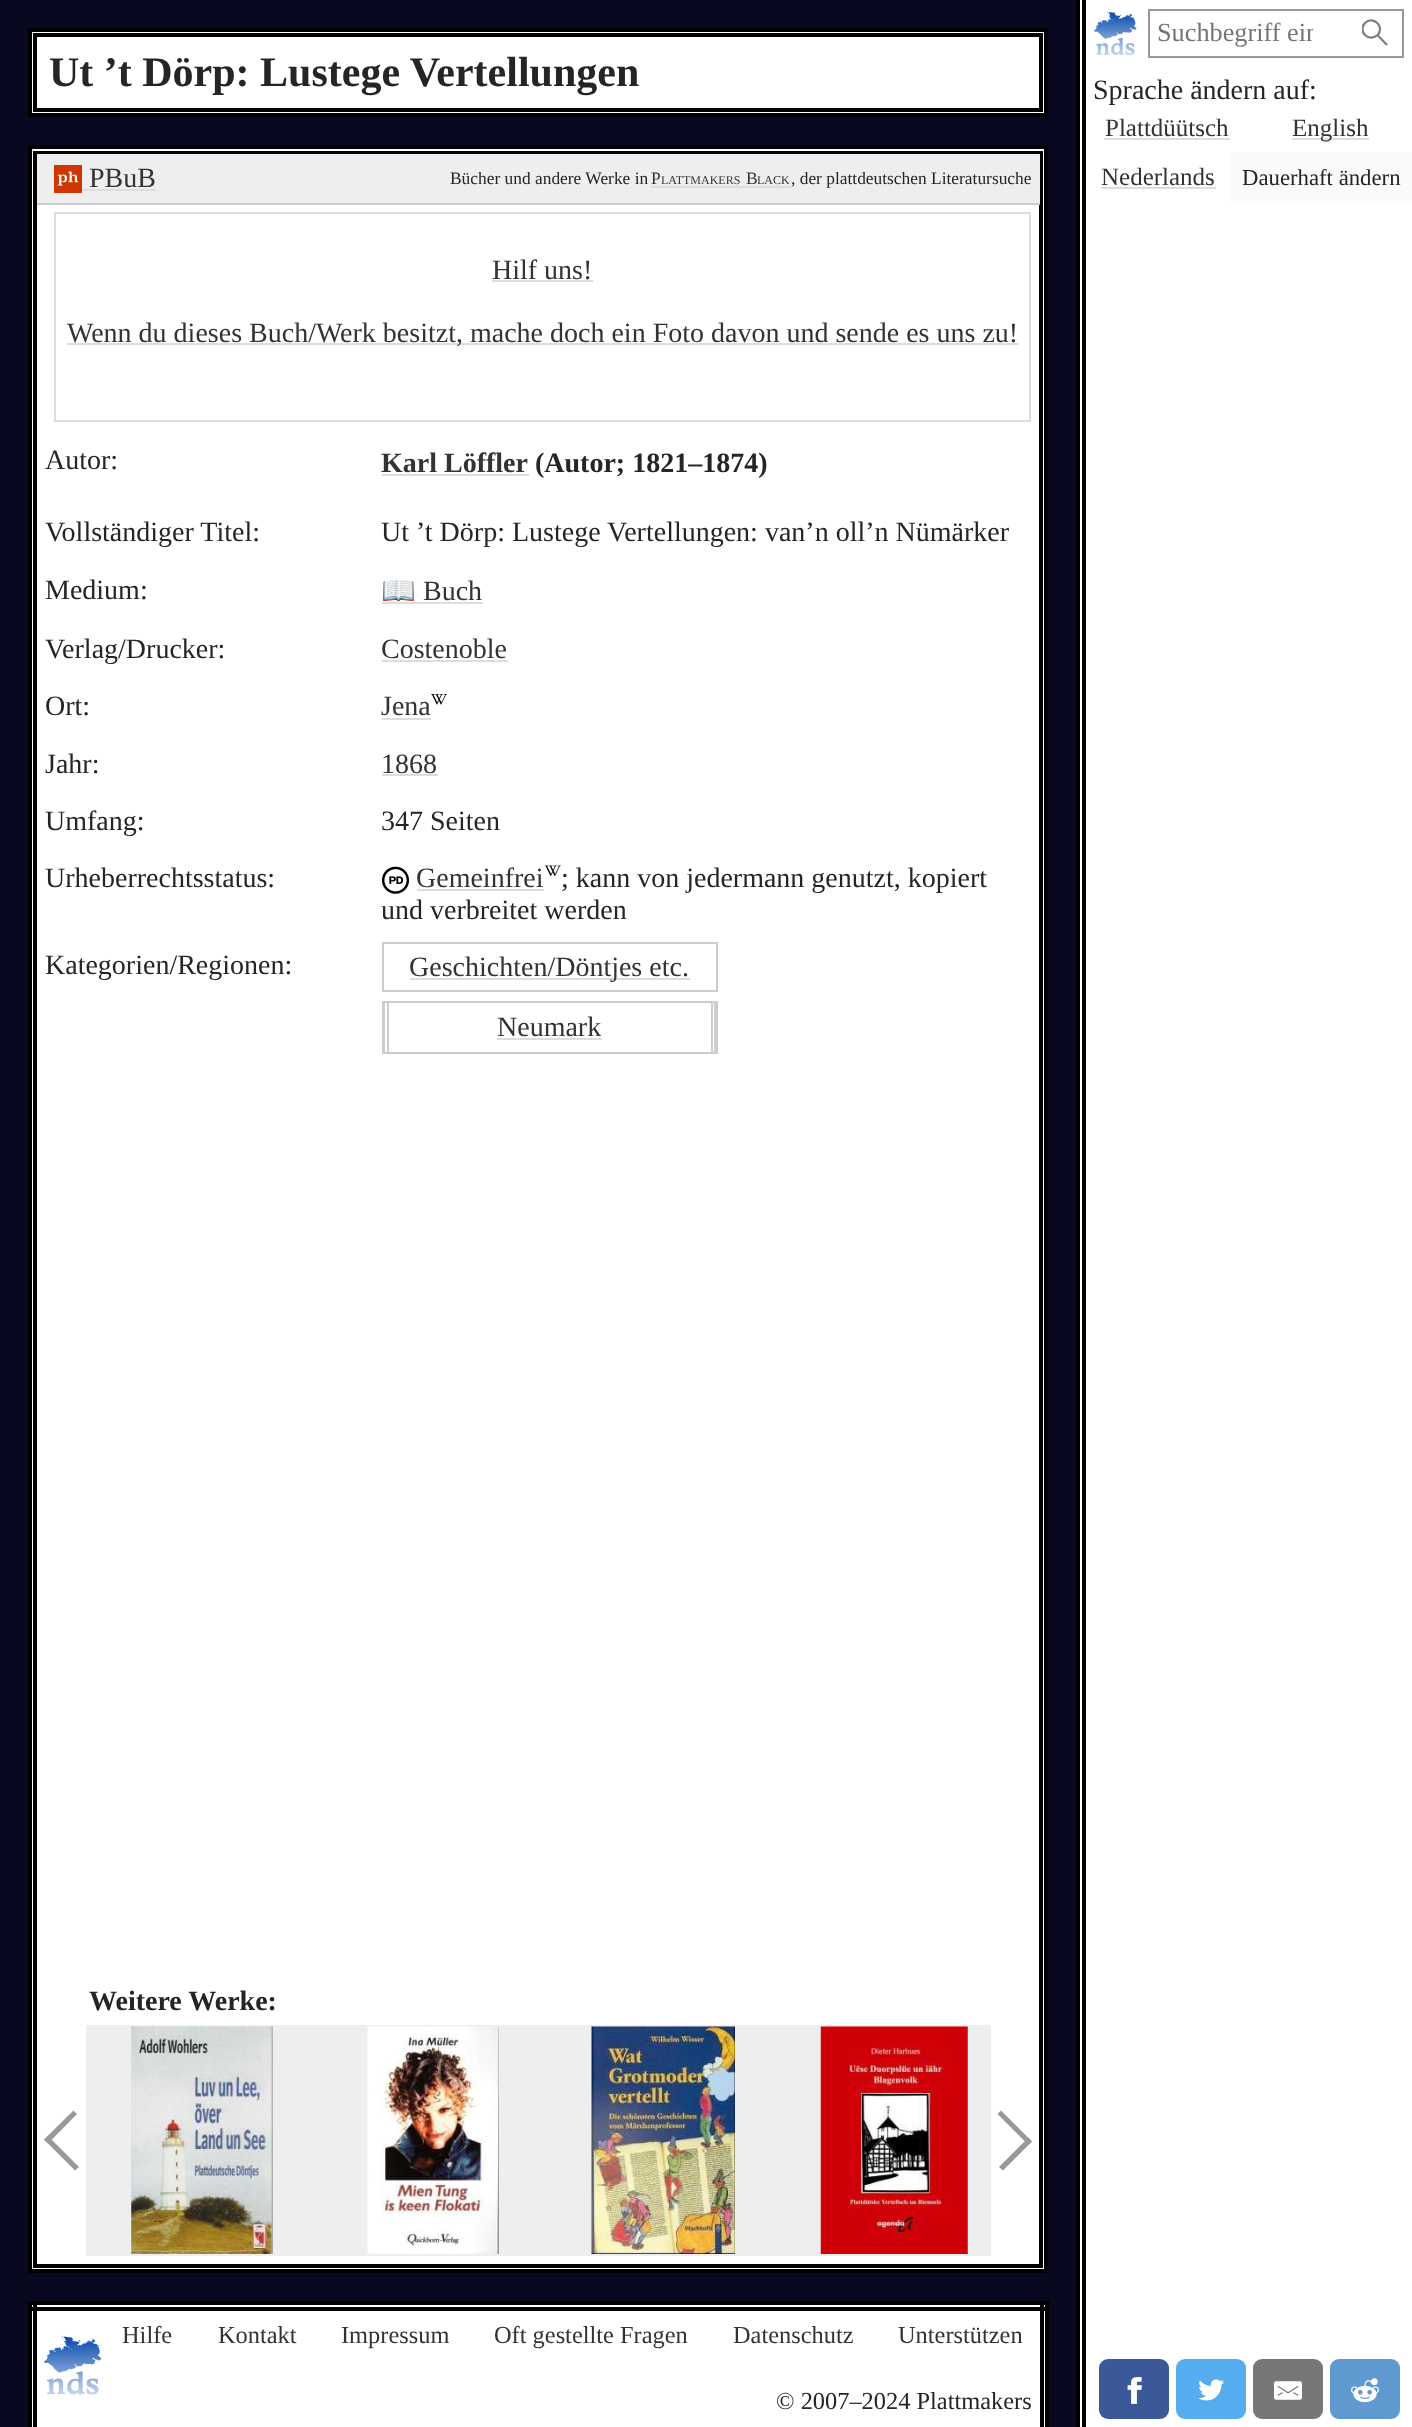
<svg xmlns="http://www.w3.org/2000/svg" width="1412" height="2427">
<defs>
<clipPath id="clip1"><rect x="1157" y="18" width="156" height="29"/></clipPath>
<clipPath id="clip2"><rect x="1362" y="19" width="28" height="28"/></clipPath>
</defs>
<rect width="100%" height="100%" fill="#080820"/>
<rect x="30" y="30" width="1016" height="85" fill="#fff" stroke="#000" stroke-width="4"/>
<rect x="35" y="35" width="1006" height="75" fill="none" stroke="#000" stroke-width="4"/>
<text x="49" y="86" style="font-family:Liberation Serif;font-size:42px;font-weight:bold;fill:#252525">Ut ’t Dörp: Lustege Vertellungen</text>
<rect x="1080" width="332" height="2427" fill="#fff"/>
<rect x="1076" width="4" height="2427" fill="#000"/>
<rect x="1082" width="4" height="2427" fill="#000"/>
<image x="1094" y="11" width="43" height="45" href="media/1.png"/>
<rect x="1149" y="10" width="254" height="47" fill="none" stroke="#999" stroke-width="2"/>
<g clip-path="url(#clip1)">
<text x="1157" y="41" style="font-family:Liberation Serif;font-size:26.25px;fill:#757575">Suchbegriff ein</text>
</g>
<g clip-path="url(#clip2)">
<path d="M1377.5 35c8-8-4.5-20-12.5-12c-8 8 4 20 12.5 12l9.5 10" fill="none" stroke="#808080" stroke-width="2.3"/>
</g>
<text x="1093" y="99" style="font-family:Liberation Serif;font-size:28px;fill:#252525">Sprache ändern auf:</text>
<text x="1105" y="136" style="font-family:Liberation Serif;font-size:25px;fill:#333">Plattdüütsch</text>
<rect x="1104" y="138" width="126" height="2" fill="#ddd"/>
<rect x="1292" y="138" width="77" height="2" fill="#ddd"/>
<text x="1292" y="136" style="font-family:Liberation Serif;font-size:25px;fill:#333">English</text>
<text x="1101" y="185" style="font-family:Liberation Serif;font-size:25px;fill:#333">Nederlands</text>
<rect x="1101" y="187" width="115" height="2" fill="#ddd"/>
<rect x="1230" y="152" width="182" height="51" fill="#fafafa"/>
<text x="1242" y="185" style="font-family:Liberation Serif;font-size:22.75px;fill:#252525">Dauerhaft ändern</text>
<rect x="1099" y="2359" width="70" height="60" rx="9" fill="#3b5998"/>
<image x="1127" y="2377" width="15" height="27" href="media/2.png"/>
<rect x="1176" y="2359" width="70" height="60" rx="9" fill="#55acee"/>
<image x="1198" y="2379" width="27" height="22" href="media/3.png"/>
<rect x="1253" y="2359" width="70" height="60" rx="9" fill="#777"/>
<image x="1274" y="2381" width="28" height="19" href="media/4.png"/>
<rect x="1330" y="2359" width="70" height="60" rx="9" fill="#5f99cf"/>
<image x="1351" y="2378" width="28" height="25" href="media/5.png"/>
<rect x="30" y="147" width="1016" height="2124" fill="#fff" stroke="#000" stroke-width="4"/>
<rect x="35" y="153" width="1006" height="2113" fill="none" stroke="#000" stroke-width="4"/>
<rect x="37" y="154" width="1003" height="49" fill="#eee"/>
<rect x="37" y="203" width="1003" height="2" fill="#ccc"/>
<image x="54" y="165" width="28" height="28" href="media/6.png"/>
<text x="89" y="187" style="font-family:Liberation Serif;font-size:28px;fill:#333">PBuB</text>
<rect x="82" y="189" width="74" height="2" fill="#ddd"/>
<text x="450" y="184" style="font-family:Liberation Serif;font-size:17.4px;fill:#252525">Bücher und andere Werke in</text>
<text x="651" y="184" style="font-family:Liberation Serif;font-size:17.4px;fill:#333">P</text>
<text x="661" y="184" style="font-family:Liberation Serif;font-size:12px;fill:#333">LATTMAKERS</text>
<rect x="651" y="186" width="140" height="2" fill="#ddd"/>
<text x="746" y="184" style="font-family:Liberation Serif;font-size:17.4px;fill:#333">B</text>
<text x="757" y="184" style="font-family:Liberation Serif;font-size:12px;fill:#333">LACK</text>
<text x="791" y="184" style="font-family:Liberation Serif;font-size:17.4px;fill:#252525">, der plattdeutschen Literatursuche</text>
<rect x="55" y="213" width="975" height="208" fill="none" stroke="#ddd" stroke-width="2"/>
<text x="492" y="279" style="font-family:Liberation Serif;font-size:28px;fill:#333">Hilf uns!</text>
<rect x="492" y="280" width="101" height="2" fill="#ddd"/>
<rect x="67" y="343" width="952" height="2" fill="#ddd"/>
<text x="67" y="342" style="font-family:Liberation Serif;font-size:28px;fill:#333">Wenn du dieses Buch/Werk besitzt, mache doch ein Foto davon und sende es uns zu!</text>
<text x="45" y="469" style="font-family:Liberation Serif;font-size:28px;fill:#252525">Autor:</text>
<text x="381" y="472" style="font-family:Liberation Serif;font-size:28px;font-weight:bold;fill:#333">Karl Löffler</text>
<rect x="382" y="474" width="147" height="2" fill="#ddd"/>
<text x="535" y="472" style="font-family:Liberation Serif;font-size:28px;font-weight:bold;fill:#252525">(Autor; 1821–1874)</text>
<text x="45" y="541" style="font-family:Liberation Serif;font-size:28px;fill:#252525">Vollständiger Titel:</text>
<text x="381" y="541" style="font-family:Liberation Serif;font-size:28px;fill:#252525">Ut ’t Dörp: Lustege Vertellungen: van’n oll’n Nümärker</text>
<text x="45" y="599" style="font-family:Liberation Serif;font-size:28px;fill:#252525">Medium:</text>
<rect x="382" y="602" width="101" height="2" fill="#ddd"/>
<text x="381" y="600" style="font-family:Noto Color Emoji;font-size:28px;fill:#333">📖</text>
<text x="423" y="600" style="font-family:Liberation Serif;font-size:28px;fill:#333">Buch</text>
<text x="45" y="658" style="font-family:Liberation Serif;font-size:28px;fill:#252525">Verlag/Drucker:</text>
<text x="381" y="658" style="font-family:Liberation Serif;font-size:28px;fill:#333">Costenoble</text>
<rect x="382" y="660" width="126" height="2" fill="#ddd"/>
<text x="45" y="715" style="font-family:Liberation Serif;font-size:28px;fill:#252525">Ort:</text>
<text x="381" y="715" style="font-family:Liberation Serif;font-size:28px;fill:#333">Jena</text>
<rect x="382" y="718" width="49" height="2" fill="#ddd"/>
<image x="431" y="694" width="17" height="11" href="media/7.png"/>
<text x="45" y="773" style="font-family:Liberation Serif;font-size:28px;fill:#252525">Jahr:</text>
<text x="381" y="773" style="font-family:Liberation Serif;font-size:28px;fill:#333">1868</text>
<rect x="382" y="774" width="56" height="2" fill="#ddd"/>
<text x="45" y="830" style="font-family:Liberation Serif;font-size:28px;fill:#252525">Umfang:</text>
<text x="381" y="830" style="font-family:Liberation Serif;font-size:28px;fill:#252525">347 Seiten</text>
<text x="45" y="887" style="font-family:Liberation Serif;font-size:28px;fill:#252525">Urheberrechtsstatus:</text>
<image x="382" y="866" width="28" height="28" href="media/8.png"/>
<text x="416" y="887" style="font-family:Liberation Serif;font-size:28px;fill:#333">Gemeinfrei</text>
<rect x="417" y="889" width="127" height="2" fill="#ddd"/>
<image x="544" y="865" width="17" height="12" href="media/9.png"/>
<text x="561" y="887" style="font-family:Liberation Serif;font-size:28px;fill:#252525">; kann von jedermann genutzt, kopiert</text>
<text x="381" y="919" style="font-family:Liberation Serif;font-size:28px;fill:#252525">und verbreitet werden</text>
<text x="45" y="974" style="font-family:Liberation Serif;font-size:28px;fill:#252525">Kategorien/Regionen:</text>
<rect x="383" y="943" width="334" height="48" fill="none" stroke="#ccc" stroke-width="2"/>
<rect x="410" y="978" width="280" height="2" fill="#ddd"/>
<text x="409" y="976" style="font-family:Liberation Serif;font-size:28px;fill:#333">Geschichten/Döntjes etc.</text>
<rect x="383" y="1002" width="334" height="51" fill="none" stroke="#ccc" stroke-width="2"/>
<rect x="711" y="1003" width="2" height="49" fill="#ccc"/>
<rect x="714" y="1003" width="2" height="49" fill="#ccc"/>
<rect x="384" y="1003" width="1" height="49" fill="#ccc"/>
<rect x="387" y="1003" width="2" height="49" fill="#ccc"/>
<text x="497" y="1036" style="font-family:Liberation Serif;font-size:28px;fill:#333">Neumark</text>
<rect x="497" y="1038" width="105" height="2" fill="#ddd"/>
<text x="89" y="2010" style="font-family:Liberation Serif;font-size:28px;font-weight:bold;fill:#252525">Weitere Werke:</text>
<path d="M79 2167l-4 3.5l-31-31l4-3.5z" fill="#999"/>
<path d="M77 2114l-29 29.5l-4-4l29.5-29z" fill="#999"/>
<rect x="86" y="2025" width="905" height="231" fill="#eee"/>
<image x="131" y="2026" width="142" height="228" href="media/10.png"/>
<image x="367" y="2026" width="132" height="228" href="media/11.png"/>
<image x="591" y="2026" width="144" height="228" href="media/12.png"/>
<image x="820" y="2026" width="148" height="228" href="media/13.png"/>
<path d="M997.5 2114l3.5-3.5l31 31l-3.5 3.5z" fill="#999"/>
<path d="M999 2167l29.5-29.5l3.5 4l-29 29z" fill="#999"/>
<rect x="32" y="2305" width="1013" height="122" fill="#fff"/>
<rect x="28" y="2301" width="1020" height="4" fill="#000"/>
<rect x="28" y="2307" width="1020" height="4" fill="#000"/>
<rect x="1040" y="2301" width="4" height="126" fill="#000"/>
<rect x="1045" y="2301" width="4" height="126" fill="#000"/>
<rect x="28" y="2301" width="4" height="126" fill="#000"/>
<rect x="33" y="2301" width="4" height="126" fill="#000"/>
<image x="44" y="2335" width="58" height="60" href="media/14.png"/>
<text x="122" y="2343" style="font-family:Liberation Serif;font-size:24.4px;fill:#333">Hilfe</text>
<text x="218" y="2343" style="font-family:Liberation Serif;font-size:24.4px;fill:#333">Kontakt</text>
<text x="341" y="2343" style="font-family:Liberation Serif;font-size:24.4px;fill:#333">Impressum</text>
<text x="494" y="2343" style="font-family:Liberation Serif;font-size:24.4px;fill:#333">Oft gestellte Fragen</text>
<text x="733" y="2343" style="font-family:Liberation Serif;font-size:24.4px;fill:#333">Datenschutz</text>
<text x="898" y="2343" style="font-family:Liberation Serif;font-size:24.4px;fill:#333">Unterstützen</text>
<text x="776" y="2409" style="font-family:Liberation Serif;font-size:24.4px;fill:#252525">© 2007–2024 Plattmakers</text>
</svg>
